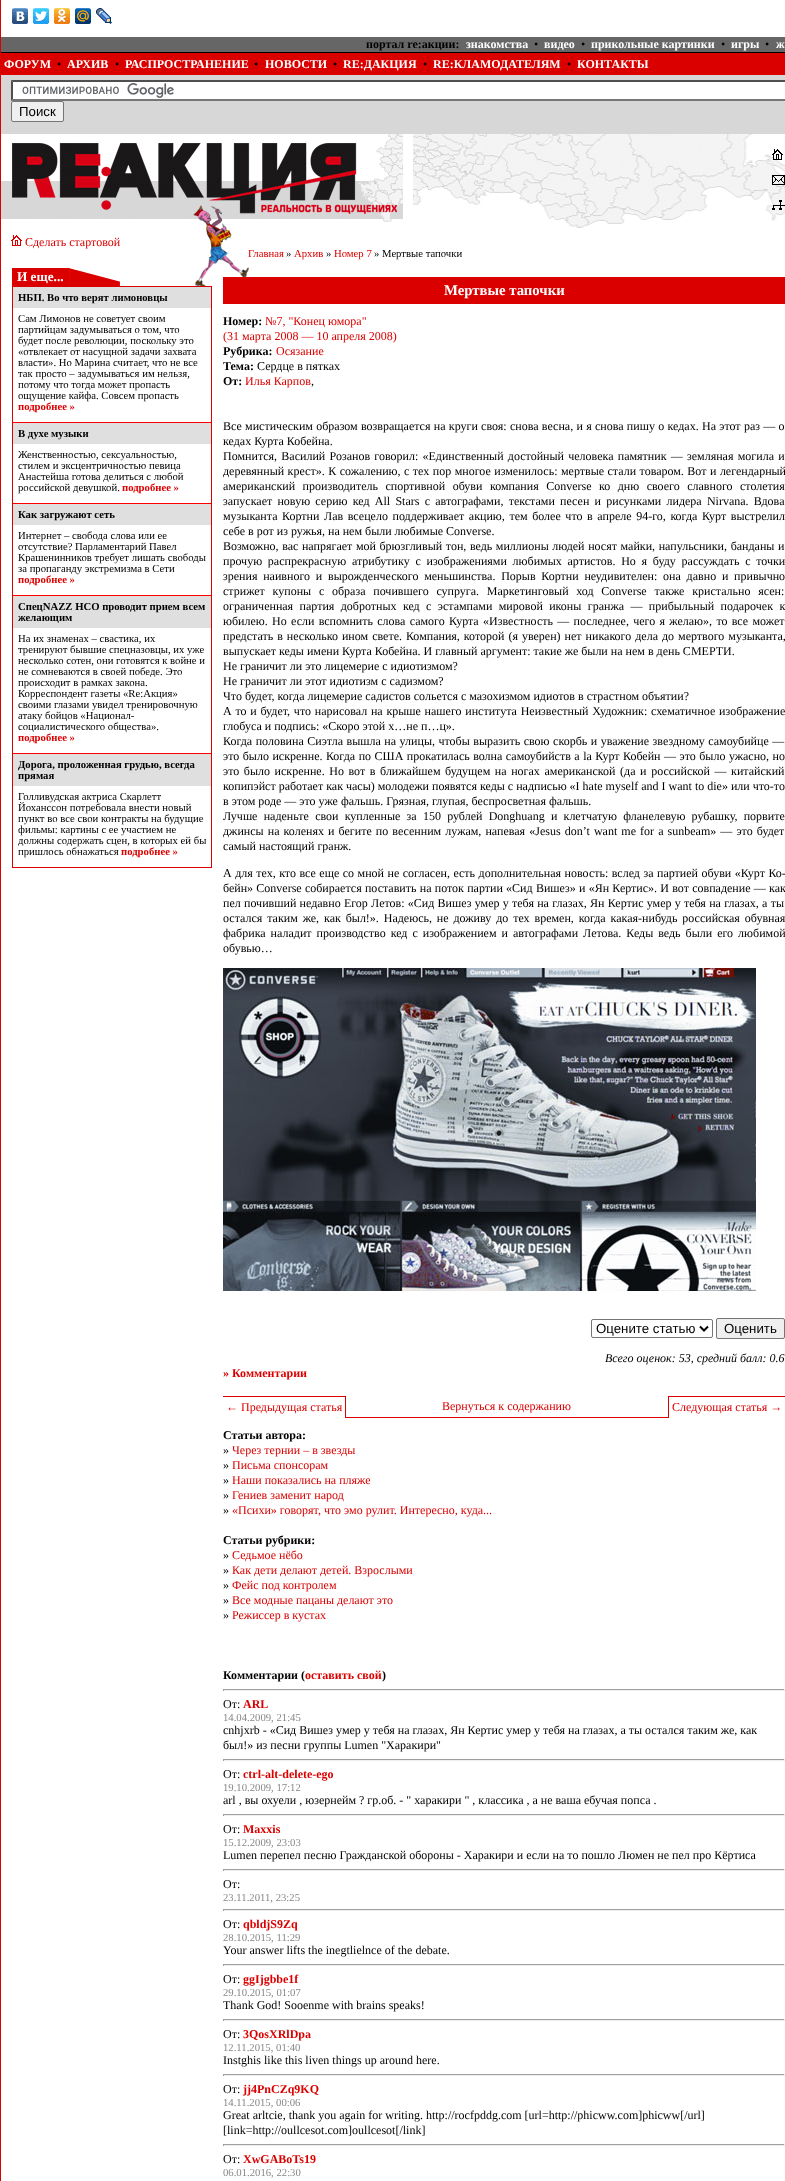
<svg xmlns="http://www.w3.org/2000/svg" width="785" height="2181">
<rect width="100%" height="100%" fill="#fff"/>
<rect width="1" height="2181" fill="#db0000"/>
<image x="12" y="8" width="16" height="16" href="media/1.png"/>
<image x="33" y="8" width="16" height="16" href="media/2.png"/>
<image x="54" y="8" width="16" height="16" href="media/3.png"/>
<image x="75" y="8" width="16" height="16" href="media/4.png"/>
<image x="96" y="8" width="16" height="16" href="media/5.png"/>
<rect x="1" y="53" width="784" height="22" fill="#db0000"/>
<rect x="1" y="37" width="784" height="15" fill="#666"/>
<text x="366" y="48" style="font-family:Liberation Serif;font-size:12px;font-weight:bold;fill:#000">портал re:акции:</text>
<text x="466" y="48" style="font-family:Liberation Serif;font-size:12px;font-weight:bold;fill:#fff">знакомства</text>
<text x="534" y="48" style="font-family:Liberation Serif;font-size:12px;fill:#000">•</text>
<text x="544" y="48" style="font-family:Liberation Serif;font-size:12px;font-weight:bold;fill:#fff">видео</text>
<text x="581" y="48" style="font-family:Liberation Serif;font-size:12px;fill:#000">•</text>
<text x="591" y="48" style="font-family:Liberation Serif;font-size:12px;font-weight:bold;fill:#fff">прикольные картинки</text>
<text x="721" y="48" style="font-family:Liberation Serif;font-size:12px;fill:#000">•</text>
<text x="731" y="48" style="font-family:Liberation Serif;font-size:12px;font-weight:bold;fill:#fff">игры</text>
<text x="765" y="48" style="font-family:Liberation Serif;font-size:12px;fill:#000">•</text>
<text x="776" y="48" style="font-family:Liberation Serif;font-size:12px;font-weight:bold;fill:#fff">ж</text>
<rect x="1" y="52" width="784" height="1" fill="#000"/>
<text x="4" y="68" style="font-family:Liberation Serif;font-size:12px;font-weight:bold;fill:#fff">ФОРУМ</text>
<text x="57" y="68" style="font-family:Liberation Serif;font-size:12px;fill:#000">•</text>
<text x="67" y="68" style="font-family:Liberation Serif;font-size:12px;font-weight:bold;fill:#fff">АРХИВ</text>
<text x="115" y="68" style="font-family:Liberation Serif;font-size:12px;fill:#000">•</text>
<text x="125" y="68" style="font-family:Liberation Serif;font-size:12px;font-weight:bold;fill:#fff">РАСПРОСТРАНЕНИЕ</text>
<text x="254" y="68" style="font-family:Liberation Serif;font-size:12px;fill:#000">•</text>
<text x="265" y="68" style="font-family:Liberation Serif;font-size:12px;font-weight:bold;fill:#fff">НОВОСТИ</text>
<text x="333" y="68" style="font-family:Liberation Serif;font-size:12px;fill:#000">•</text>
<text x="343" y="68" style="font-family:Liberation Serif;font-size:12px;font-weight:bold;fill:#fff">RE:ДАКЦИЯ</text>
<text x="423" y="68" style="font-family:Liberation Serif;font-size:12px;fill:#000">•</text>
<text x="433" y="68" style="font-family:Liberation Serif;font-size:12px;font-weight:bold;fill:#fff">RE:КЛАМОДАТЕЛЯМ</text>
<text x="567" y="68" style="font-family:Liberation Serif;font-size:12px;fill:#000">•</text>
<text x="577" y="68" style="font-family:Liberation Serif;font-size:12px;font-weight:bold;fill:#fff">КОНТАКТЫ</text>
<rect x="1" y="75" width="784" height="59" fill="#d7d7d7"/>
<rect x="11" y="80" width="774" height="21" fill="#fff"/>
<image x="22" y="83" width="152" height="15" href="media/6.png"/>
<path d="M11 80h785l-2 2h-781z" fill="#4f4f4f"/>
<path d="M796 101h-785l2-2h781z" fill="#767676"/>
<path d="M11 101v-21l2 2v17z" fill="#4f4f4f"/>
<rect x="11.5" y="101.5" width="52" height="20" rx="1.5" fill="#efefef" stroke="#767676"/>
<text x="19" y="116" style="font-family:Liberation Sans;font-size:13.25px;fill:#000">Поиск</text>
<image x="1" y="134" width="402" height="96" href="media/7.png"/>
<image x="413" y="134" width="372" height="94" href="media/8.png"/>
<image x="772" y="149" width="11" height="11" href="media/9.png"/>
<image x="772" y="175" width="13" height="10" href="media/10.png"/>
<image x="772" y="200" width="13" height="10" href="media/11.png"/>
<image x="194" y="230" width="18" height="56" href="media/12.png"/>
<image x="11" y="235" width="11" height="11" href="media/13.png"/>
<text x="25" y="246" style="font-family:Liberation Serif;font-size:12px;fill:#db0000">Сделать стартовой</text>
<rect x="12" y="268" width="57" height="18" fill="#db0000"/>
<text x="17" y="281" style="font-family:Liberation Serif;font-size:13.25px;font-weight:bold;fill:#fff">И еще...</text>
<image x="69" y="268" width="51" height="18" href="media/14.png"/>
<rect x="12.5" y="286.5" width="199" height="581" fill="none" stroke="#db0000"/>
<rect x="13" y="287" width="198" height="21" fill="#dfdfdf"/>
<text x="18" y="301" style="font-family:Liberation Serif;font-size:10.7px;font-weight:bold;fill:#000">НБП. Во что верят лимоновцы</text>
<text x="18" y="322" style="font-family:Liberation Serif;font-size:10.7px;fill:#000">Сам Лимонов не советует своим</text>
<text x="18" y="333" style="font-family:Liberation Serif;font-size:10.7px;fill:#000">партийцам задумываться о том, что</text>
<text x="18" y="344" style="font-family:Liberation Serif;font-size:10.7px;fill:#000">будет после революции, поскольку это</text>
<text x="18" y="355" style="font-family:Liberation Serif;font-size:10.7px;fill:#000">«отвлекает от насущной задачи захвата</text>
<text x="18" y="366" style="font-family:Liberation Serif;font-size:10.7px;fill:#000">власти». Но Марина считает, что не все</text>
<text x="18" y="377" style="font-family:Liberation Serif;font-size:10.7px;fill:#000">так просто – задумываться им нельзя,</text>
<text x="18" y="388" style="font-family:Liberation Serif;font-size:10.7px;fill:#000">потому что тогда может пропасть</text>
<text x="18" y="399" style="font-family:Liberation Serif;font-size:10.7px;fill:#000">ощущение кайфа. Совсем пропасть</text>
<text x="18" y="410" style="font-family:Liberation Serif;font-size:10.7px;font-weight:bold;fill:#db0000">подробнее »</text>
<rect x="13" y="423" width="198" height="21" fill="#dfdfdf"/>
<rect x="13" y="422" width="198" height="1" fill="#f00"/>
<text x="18" y="437" style="font-family:Liberation Serif;font-size:10.7px;font-weight:bold;fill:#000">В духе музыки</text>
<text x="18" y="458" style="font-family:Liberation Serif;font-size:10.7px;fill:#000">Женственностью, сексуальностью,</text>
<text x="18" y="469" style="font-family:Liberation Serif;font-size:10.7px;fill:#000">стилем и эксцентричностью певица</text>
<text x="18" y="480" style="font-family:Liberation Serif;font-size:10.7px;fill:#000">Анастейша готова делиться с любой</text>
<text x="18" y="491" style="font-family:Liberation Serif;font-size:10.7px;fill:#000">российской девушкой.</text>
<text x="122" y="491" style="font-family:Liberation Serif;font-size:10.7px;font-weight:bold;fill:#db0000">подробнее »</text>
<rect x="13" y="504" width="198" height="21" fill="#dfdfdf"/>
<rect x="13" y="503" width="198" height="1" fill="#f00"/>
<text x="18" y="518" style="font-family:Liberation Serif;font-size:10.7px;font-weight:bold;fill:#000">Как загружают сеть</text>
<text x="18" y="539" style="font-family:Liberation Serif;font-size:10.7px;fill:#000">Интернет – свобода слова или ее</text>
<text x="18" y="550" style="font-family:Liberation Serif;font-size:10.7px;fill:#000">отсутствие? Парламентарий Павел</text>
<text x="18" y="561" style="font-family:Liberation Serif;font-size:10.7px;fill:#000">Крашенинников требует лишать свободы</text>
<text x="18" y="572" style="font-family:Liberation Serif;font-size:10.7px;fill:#000">за пропаганду экстремизма в Сети</text>
<text x="18" y="583" style="font-family:Liberation Serif;font-size:10.7px;font-weight:bold;fill:#db0000">подробнее »</text>
<rect x="13" y="596" width="198" height="32" fill="#dfdfdf"/>
<rect x="13" y="595" width="198" height="1" fill="#f00"/>
<text x="18" y="610" style="font-family:Liberation Serif;font-size:10.7px;font-weight:bold;fill:#000">СпецNAZZ НСО проводит прием всем</text>
<text x="18" y="621" style="font-family:Liberation Serif;font-size:10.7px;font-weight:bold;fill:#000">желающим</text>
<text x="18" y="642" style="font-family:Liberation Serif;font-size:10.7px;fill:#000">На их знаменах – свастика, их</text>
<text x="18" y="653" style="font-family:Liberation Serif;font-size:10.7px;fill:#000">тренируют бывшие спецназовцы, их уже</text>
<text x="18" y="664" style="font-family:Liberation Serif;font-size:10.7px;fill:#000">несколько сотен, они готовятся к войне и</text>
<text x="18" y="675" style="font-family:Liberation Serif;font-size:10.7px;fill:#000">не сомневаются в своей победе. Это</text>
<text x="18" y="686" style="font-family:Liberation Serif;font-size:10.7px;fill:#000">происходит в рамках закона.</text>
<text x="18" y="697" style="font-family:Liberation Serif;font-size:10.7px;fill:#000">Корреспондент газеты «Re:Акция»</text>
<text x="18" y="708" style="font-family:Liberation Serif;font-size:10.7px;fill:#000">своими глазами увидел тренировочную</text>
<text x="18" y="719" style="font-family:Liberation Serif;font-size:10.7px;fill:#000">атаку бойцов «Национал-</text>
<text x="18" y="730" style="font-family:Liberation Serif;font-size:10.7px;fill:#000">социалистического общества».</text>
<text x="18" y="741" style="font-family:Liberation Serif;font-size:10.7px;font-weight:bold;fill:#db0000">подробнее »</text>
<rect x="13" y="754" width="198" height="32" fill="#dfdfdf"/>
<rect x="13" y="753" width="198" height="1" fill="#f00"/>
<text x="18" y="768" style="font-family:Liberation Serif;font-size:10.7px;font-weight:bold;fill:#000">Дорога, проложенная грудью, всегда</text>
<text x="18" y="779" style="font-family:Liberation Serif;font-size:10.7px;font-weight:bold;fill:#000">прямая</text>
<text x="18" y="800" style="font-family:Liberation Serif;font-size:10.7px;fill:#000">Голливудская актриса Скарлетт</text>
<text x="18" y="811" style="font-family:Liberation Serif;font-size:10.7px;fill:#000">Йоханссон потребовала внести новый</text>
<text x="18" y="822" style="font-family:Liberation Serif;font-size:10.7px;fill:#000">пункт во все свои контракты на будущие</text>
<text x="18" y="833" style="font-family:Liberation Serif;font-size:10.7px;fill:#000">фильмы: картины с ее участием не</text>
<text x="18" y="844" style="font-family:Liberation Serif;font-size:10.7px;fill:#000">должны содержать сцен, в которых ей бы</text>
<text x="18" y="855" style="font-family:Liberation Serif;font-size:10.7px;fill:#000">пришлось обнажаться</text>
<text x="121" y="855" style="font-family:Liberation Serif;font-size:10.7px;font-weight:bold;fill:#db0000">подробнее »</text>
<image x="212" y="230" width="11" height="35" href="media/15.png"/>
<image x="223" y="230" width="26" height="47" href="media/16.png"/>
<text x="248" y="257" style="font-family:Liberation Serif;font-size:10.7px;fill:#db0000">Главная</text>
<text x="286" y="257" style="font-family:Liberation Serif;font-size:10.7px;fill:#000">»</text>
<text x="294" y="257" style="font-family:Liberation Serif;font-size:10.7px;fill:#db0000">Архив</text>
<text x="326" y="257" style="font-family:Liberation Serif;font-size:10.7px;fill:#000">»</text>
<text x="334" y="257" style="font-family:Liberation Serif;font-size:10.7px;fill:#db0000">Номер 7</text>
<text x="374" y="257" style="font-family:Liberation Serif;font-size:10.7px;fill:#000">» Мертвые тапочки</text>
<rect x="223" y="277" width="562" height="27" fill="#db0000"/>
<text x="444" y="295" style="font-family:Liberation Serif;font-size:14.75px;font-weight:bold;fill:#fff">Мертвые тапочки</text>
<text x="223" y="325" style="font-family:Liberation Serif;font-size:12px;font-weight:bold;fill:#000">Номер:</text>
<text x="265" y="325" style="font-family:Liberation Serif;font-size:12px;fill:#db0000">№7, "Конец юмора"</text>
<text x="223" y="340" style="font-family:Liberation Serif;font-size:12px;fill:#db0000">(31 марта 2008 — 10 апреля 2008)</text>
<text x="223" y="355" style="font-family:Liberation Serif;font-size:12px;font-weight:bold;fill:#000">Рубрика:</text>
<text x="276" y="355" style="font-family:Liberation Serif;font-size:12px;fill:#db0000">Осязание</text>
<text x="223" y="370" style="font-family:Liberation Serif;font-size:12px;font-weight:bold;fill:#000">Тема:</text>
<text x="257" y="370" style="font-family:Liberation Serif;font-size:12px;fill:#000">Сердце в пятках</text>
<text x="223" y="385" style="font-family:Liberation Serif;font-size:12px;font-weight:bold;fill:#000">От:</text>
<text x="245" y="385" style="font-family:Liberation Serif;font-size:12px;fill:#db0000">Илья Карпов</text>
<text x="311" y="385" style="font-family:Liberation Serif;font-size:12px;fill:#000">,</text>
<text x="223" y="430" word-spacing="0.3" style="font-family:Liberation Serif;font-size:12px;fill:#000">Все мистическим образом возвращается на круги своя: снова весна, и я снова пишу о кедах. На этот раз — о</text>
<text x="223" y="445" style="font-family:Liberation Serif;font-size:12px;fill:#000">кедах Курта Кобейна.</text>
<text x="223" y="460" word-spacing="1.25" style="font-family:Liberation Serif;font-size:12px;fill:#000">Помнится, Василий Розанов говорил: «Единственный достойный человека памятник — земляная могила и</text>
<text x="223" y="475" word-spacing="0.5" style="font-family:Liberation Serif;font-size:12px;fill:#000">деревянный крест». К сожалению, с тех пор многое изменилось: мертвые стали товаром. Вот и легендарный</text>
<text x="223" y="490" word-spacing="4.5" style="font-family:Liberation Serif;font-size:12px;fill:#000">американский производитель спортивной обуви компания Converse ко дню своего славного столетия</text>
<text x="223" y="505" word-spacing="2.25" style="font-family:Liberation Serif;font-size:12px;fill:#000">запускает новую серию кед All Stars с автографами, текстами песен и рисунками лидера Nirvana. Вдова</text>
<text x="223" y="520" word-spacing="1.6" style="font-family:Liberation Serif;font-size:12px;fill:#000">музыканта Кортни Лав всецело поддерживает акцию, тем более что в апреле 94-го, когда Курт выстрелил</text>
<text x="223" y="535" style="font-family:Liberation Serif;font-size:12px;fill:#000">себе в рот из ружья, на нем были любимые Converse.</text>
<text x="223" y="550" word-spacing="0.6" style="font-family:Liberation Serif;font-size:12px;fill:#000">Возможно, вас напрягает мой брюзгливый тон, ведь миллионы людей носят майки, напульсники, банданы и</text>
<text x="223" y="565" word-spacing="2.75" style="font-family:Liberation Serif;font-size:12px;fill:#000">прочую распрекрасную атрибутику с изображениями любимых артистов. Но я буду рассуждать с точки</text>
<text x="223" y="580" word-spacing="2.75" style="font-family:Liberation Serif;font-size:12px;fill:#000">зрения наивного и вырожденческого меньшинства. Порыв Кортни неудивителен: она давно и привычно</text>
<text x="223" y="595" word-spacing="4.75" style="font-family:Liberation Serif;font-size:12px;fill:#000">стрижет купоны с образа почившего супруга. Маркетинговый ход Converse также кристально ясен:</text>
<text x="223" y="610" word-spacing="3.4" style="font-family:Liberation Serif;font-size:12px;fill:#000">ограниченная партия добротных кед с эстампами мировой иконы гранжа — прибыльный подарочек к</text>
<text x="223" y="625" word-spacing="1.3" style="font-family:Liberation Serif;font-size:12px;fill:#000">юбилею. Но если вспомнить слова самого Курта «Известность — последнее, чего я желаю», то все может</text>
<text x="223" y="640" word-spacing="1" style="font-family:Liberation Serif;font-size:12px;fill:#000">предстать в несколько ином свете. Компания, которой (я уверен) нет никакого дела до мертвого музыканта,</text>
<text x="223" y="655" style="font-family:Liberation Serif;font-size:12px;fill:#000">выпускает кеды имени Курта Кобейна. И главный аргумент: такие же были на нем в день СМЕРТИ.</text>
<text x="223" y="670" style="font-family:Liberation Serif;font-size:12px;fill:#000">Не граничит ли это лицемерие с идиотизмом?</text>
<text x="223" y="685" style="font-family:Liberation Serif;font-size:12px;fill:#000">Не граничит ли этот идиотизм с садизмом?</text>
<text x="223" y="700" style="font-family:Liberation Serif;font-size:12px;fill:#000">Что будет, когда лицемерие садистов сольется с мазохизмом идиотов в страстном объятии?</text>
<text x="223" y="715" word-spacing="0.75" style="font-family:Liberation Serif;font-size:12px;fill:#000">А то и будет, что нарисовал на крыше нашего института Неизвестный Художник: схематичное изображение</text>
<text x="223" y="730" style="font-family:Liberation Serif;font-size:12px;fill:#000">глобуса и подпись: «Скоро этой х…не п…ц».</text>
<text x="223" y="745" word-spacing="0.5" style="font-family:Liberation Serif;font-size:12px;fill:#000">Когда половина Сиэтла вышла на улицы, чтобы выразить свою скорбь и уважение звездному самоубийце —</text>
<text x="223" y="760" word-spacing="0.5" style="font-family:Liberation Serif;font-size:12px;fill:#000">это было искренне. Когда по США прокатилась волна самоубийств a la Курт Кобейн — это было ужасно, но</text>
<text x="223" y="775" word-spacing="1.6" style="font-family:Liberation Serif;font-size:12px;fill:#000">это было искренне. Но вот в ближайшем будущем на ногах американской (да и российской — китайский</text>
<text x="223" y="790" style="font-family:Liberation Serif;font-size:12px;fill:#000">копипэйст работает как часы) молодежи появятся кеды с надписью «I hate myself and I want to die» или что-то</text>
<text x="223" y="805" style="font-family:Liberation Serif;font-size:12px;fill:#000">в этом роде — это уже фальшь. Грязная, глупая, беспросветная фальшь.</text>
<text x="223" y="820" word-spacing="3.25" style="font-family:Liberation Serif;font-size:12px;fill:#000">Лучше наденьте свои купленные за 150 рублей Donghuang и клетчатую фланелевую рубашку, порвите</text>
<text x="223" y="835" word-spacing="1.1" style="font-family:Liberation Serif;font-size:12px;fill:#000">джинсы на коленях и бегите по весенним лужам, напевая «Jesus don’t want me for a sunbeam» — это будет</text>
<text x="223" y="850" style="font-family:Liberation Serif;font-size:12px;fill:#000">самый настоящий гранж.</text>
<text x="223" y="877" word-spacing="0.5" style="font-family:Liberation Serif;font-size:12px;fill:#000">А для тех, кто все еще со мной не согласен, есть дополнительная новость: вслед за партией обуви «Курт Ко-</text>
<text x="223" y="892" word-spacing="0.25" style="font-family:Liberation Serif;font-size:12px;fill:#000">бейн» Converse собирается поставить на поток партии «Сид Вишез» и «Ян Кертис». И вот совпадение — как</text>
<text x="223" y="907" word-spacing="0.25" style="font-family:Liberation Serif;font-size:12px;fill:#000">пел почивший недавно Егор Летов: «Сид Вишез умер у тебя на глазах, Ян Кертис умер у тебя на глазах, а ты</text>
<text x="223" y="922" word-spacing="1.9" style="font-family:Liberation Serif;font-size:12px;fill:#000">остался таким же, как был!». Надеюсь, не доживу до тех времен, когда какая-нибудь российская обувная</text>
<text x="223" y="937" word-spacing="2" style="font-family:Liberation Serif;font-size:12px;fill:#000">фабрика наладит производство кед с изображением и автографами Летова. Кеды ведь были его любимой</text>
<text x="223" y="952" style="font-family:Liberation Serif;font-size:12px;fill:#000">обувью…</text>
<image x="223" y="968" width="533" height="323" href="media/17.png"/>
<rect x="591.5" y="1319.5" width="121" height="18" rx="1.5" fill="none" stroke="#767676"/>
<path d="M700 1326.5l4 4l4-4" fill="none" stroke="#000" stroke-width="2"/>
<text x="596" y="1333" style="font-family:Liberation Sans;font-size:13.25px;fill:#000">Оцените статью</text>
<rect x="716.5" y="1318.5" width="68" height="20" rx="1.5" fill="#efefef" stroke="#767676"/>
<text x="724" y="1333" style="font-family:Liberation Sans;font-size:13.25px;fill:#000">Оценить</text>
<text x="605" y="1362" style="font-family:Liberation Serif;font-size:12px;font-style:italic;fill:#000">Всего оценок: 53, средний балл: 0.6</text>
<text x="223" y="1377" style="font-family:Liberation Serif;font-size:12px;font-weight:bold;fill:#db0000">» Комментарии</text>
<rect x="223" y="1396" width="123" height="1" fill="#db0000"/>
<rect x="345" y="1396" width="1" height="22" fill="#db0000"/>
<text x="226" y="1411" style="font-family:Liberation Serif;font-size:12px;fill:#db0000">← Предыдущая статья</text>
<rect x="346" y="1417" width="322" height="1" fill="#db0000"/>
<text x="442" y="1410" style="font-family:Liberation Serif;font-size:12px;fill:#db0000">Вернуться к содержанию</text>
<rect x="668" y="1396" width="117" height="1" fill="#db0000"/>
<rect x="668" y="1396" width="1" height="22" fill="#db0000"/>
<text x="672" y="1411" style="font-family:Liberation Serif;font-size:12px;fill:#db0000">Следующая статья →</text>
<text x="223" y="1439" style="font-family:Liberation Serif;font-size:12px;font-weight:bold;fill:#000">Статьи автора:</text>
<text x="223" y="1454" style="font-family:Liberation Serif;font-size:12px;fill:#000">»</text>
<text x="232" y="1454" style="font-family:Liberation Serif;font-size:12px;fill:#db0000">Через тернии – в звезды</text>
<text x="223" y="1469" style="font-family:Liberation Serif;font-size:12px;fill:#000">»</text>
<text x="232" y="1469" style="font-family:Liberation Serif;font-size:12px;fill:#db0000">Письма спонсорам</text>
<text x="223" y="1484" style="font-family:Liberation Serif;font-size:12px;fill:#000">»</text>
<text x="232" y="1484" style="font-family:Liberation Serif;font-size:12px;fill:#db0000">Наши показались на пляже</text>
<text x="223" y="1499" style="font-family:Liberation Serif;font-size:12px;fill:#000">»</text>
<text x="232" y="1499" style="font-family:Liberation Serif;font-size:12px;fill:#db0000">Гениев заменит народ</text>
<text x="223" y="1514" style="font-family:Liberation Serif;font-size:12px;fill:#000">»</text>
<text x="232" y="1514" style="font-family:Liberation Serif;font-size:12px;fill:#db0000">«Психи» говорят, что эмо рулит. Интересно, куда...</text>
<text x="223" y="1544" style="font-family:Liberation Serif;font-size:12px;font-weight:bold;fill:#000">Статьи рубрики:</text>
<text x="223" y="1559" style="font-family:Liberation Serif;font-size:12px;fill:#000">»</text>
<text x="232" y="1559" style="font-family:Liberation Serif;font-size:12px;fill:#db0000">Седьмое нёбо</text>
<text x="223" y="1574" style="font-family:Liberation Serif;font-size:12px;fill:#000">»</text>
<text x="232" y="1574" style="font-family:Liberation Serif;font-size:12px;fill:#db0000">Как дети делают детей. Взрослыми</text>
<text x="223" y="1589" style="font-family:Liberation Serif;font-size:12px;fill:#000">»</text>
<text x="232" y="1589" style="font-family:Liberation Serif;font-size:12px;fill:#db0000">Фейс под контролем</text>
<text x="223" y="1604" style="font-family:Liberation Serif;font-size:12px;fill:#000">»</text>
<text x="232" y="1604" style="font-family:Liberation Serif;font-size:12px;fill:#db0000">Все модные пацаны делают это</text>
<text x="223" y="1619" style="font-family:Liberation Serif;font-size:12px;fill:#000">»</text>
<text x="232" y="1619" style="font-family:Liberation Serif;font-size:12px;fill:#db0000">Режиссер в кустах</text>
<text x="223" y="1679" style="font-family:Liberation Serif;font-size:12px;font-weight:bold;fill:#000">Комментарии (</text>
<text x="305" y="1679" style="font-family:Liberation Serif;font-size:12px;font-weight:bold;fill:#db0000">оставить свой</text>
<text x="382" y="1679" style="font-family:Liberation Serif;font-size:12px;font-weight:bold;fill:#000">)</text>
<rect x="223" y="1689" width="562" height="1" fill="#9f9f9f"/>
<rect x="784" y="1689" width="1" height="2" fill="#eee"/>
<rect x="223" y="1690" width="562" height="1" fill="#eee"/>
<rect x="223" y="1689" width="1" height="2" fill="#9f9f9f"/>
<text x="223" y="1708" style="font-family:Liberation Serif;font-size:12px;fill:#000">От:</text>
<text x="243" y="1708" style="font-family:Liberation Serif;font-size:12px;font-weight:bold;fill:#db0000">ARL</text>
<text x="223" y="1721" style="font-family:Liberation Serif;font-size:10.7px;fill:#888">14.04.2009, 21:45</text>
<text x="223" y="1734" style="font-family:Liberation Serif;font-size:12px;fill:#000">cnhjxrb - «Сид Вишез умер у тебя на глазах, Ян Кертис умер у тебя на глазах, а ты остался таким же, как</text>
<text x="223" y="1749" style="font-family:Liberation Serif;font-size:12px;fill:#000">был!» из песни группы Lumen "Харакири"</text>
<rect x="223" y="1759" width="562" height="1" fill="#9f9f9f"/>
<rect x="784" y="1759" width="1" height="2" fill="#eee"/>
<rect x="223" y="1760" width="562" height="1" fill="#eee"/>
<rect x="223" y="1759" width="1" height="2" fill="#9f9f9f"/>
<text x="223" y="1778" style="font-family:Liberation Serif;font-size:12px;fill:#000">От:</text>
<text x="243" y="1778" style="font-family:Liberation Serif;font-size:12px;font-weight:bold;fill:#db0000">ctrl-alt-delete-ego</text>
<text x="223" y="1791" style="font-family:Liberation Serif;font-size:10.7px;fill:#888">19.10.2009, 17:12</text>
<text x="223" y="1804" style="font-family:Liberation Serif;font-size:12px;fill:#000">arl , вы охуели , юзернейм ? гр.об. - " харакири " , классика , а не ваша ебучая попса .</text>
<rect x="223" y="1814" width="562" height="1" fill="#9f9f9f"/>
<rect x="784" y="1814" width="1" height="2" fill="#eee"/>
<rect x="223" y="1815" width="562" height="1" fill="#eee"/>
<rect x="223" y="1814" width="1" height="2" fill="#9f9f9f"/>
<text x="223" y="1833" style="font-family:Liberation Serif;font-size:12px;fill:#000">От:</text>
<text x="243" y="1833" style="font-family:Liberation Serif;font-size:12px;font-weight:bold;fill:#db0000">Maxxis</text>
<text x="223" y="1846" style="font-family:Liberation Serif;font-size:10.7px;fill:#888">15.12.2009, 23:03</text>
<text x="223" y="1859" style="font-family:Liberation Serif;font-size:12px;fill:#000">Lumen перепел песню Гражданской обороны - Харакири и если на то пошло Люмен не пел про Кёртиса</text>
<rect x="223" y="1869" width="562" height="1" fill="#9f9f9f"/>
<rect x="784" y="1869" width="1" height="2" fill="#eee"/>
<rect x="223" y="1870" width="562" height="1" fill="#eee"/>
<rect x="223" y="1869" width="1" height="2" fill="#9f9f9f"/>
<text x="223" y="1888" style="font-family:Liberation Serif;font-size:12px;fill:#000">От:</text>
<text x="223" y="1901" style="font-family:Liberation Serif;font-size:10.7px;fill:#888">23.11.2011, 23:25</text>
<rect x="223" y="1909" width="562" height="1" fill="#9f9f9f"/>
<rect x="784" y="1909" width="1" height="2" fill="#eee"/>
<rect x="223" y="1910" width="562" height="1" fill="#eee"/>
<rect x="223" y="1909" width="1" height="2" fill="#9f9f9f"/>
<text x="223" y="1928" style="font-family:Liberation Serif;font-size:12px;fill:#000">От:</text>
<text x="243" y="1928" style="font-family:Liberation Serif;font-size:12px;font-weight:bold;fill:#db0000">qbldjS9Zq</text>
<text x="223" y="1941" style="font-family:Liberation Serif;font-size:10.7px;fill:#888">28.10.2015, 11:29</text>
<text x="223" y="1954" style="font-family:Liberation Serif;font-size:12px;fill:#000">Your answer lifts the inegtlielnce of the debate.</text>
<rect x="223" y="1964" width="562" height="1" fill="#9f9f9f"/>
<rect x="784" y="1964" width="1" height="2" fill="#eee"/>
<rect x="223" y="1965" width="562" height="1" fill="#eee"/>
<rect x="223" y="1964" width="1" height="2" fill="#9f9f9f"/>
<text x="223" y="1983" style="font-family:Liberation Serif;font-size:12px;fill:#000">От:</text>
<text x="243" y="1983" style="font-family:Liberation Serif;font-size:12px;font-weight:bold;fill:#db0000">ggIjgbbe1f</text>
<text x="223" y="1996" style="font-family:Liberation Serif;font-size:10.7px;fill:#888">29.10.2015, 01:07</text>
<text x="223" y="2009" style="font-family:Liberation Serif;font-size:12px;fill:#000">Thank God! Sooenme with brains speaks!</text>
<rect x="223" y="2019" width="562" height="1" fill="#9f9f9f"/>
<rect x="784" y="2019" width="1" height="2" fill="#eee"/>
<rect x="223" y="2020" width="562" height="1" fill="#eee"/>
<rect x="223" y="2019" width="1" height="2" fill="#9f9f9f"/>
<text x="223" y="2038" style="font-family:Liberation Serif;font-size:12px;fill:#000">От:</text>
<text x="243" y="2038" style="font-family:Liberation Serif;font-size:12px;font-weight:bold;fill:#db0000">3QosXRlDpa</text>
<text x="223" y="2051" style="font-family:Liberation Serif;font-size:10.7px;fill:#888">12.11.2015, 01:40</text>
<text x="223" y="2064" style="font-family:Liberation Serif;font-size:12px;fill:#000">Instghis like this liven things up around here.</text>
<rect x="223" y="2074" width="562" height="1" fill="#9f9f9f"/>
<rect x="784" y="2074" width="1" height="2" fill="#eee"/>
<rect x="223" y="2075" width="562" height="1" fill="#eee"/>
<rect x="223" y="2074" width="1" height="2" fill="#9f9f9f"/>
<text x="223" y="2093" style="font-family:Liberation Serif;font-size:12px;fill:#000">От:</text>
<text x="243" y="2093" style="font-family:Liberation Serif;font-size:12px;font-weight:bold;fill:#db0000">jj4PnCZq9KQ</text>
<text x="223" y="2106" style="font-family:Liberation Serif;font-size:10.7px;fill:#888">14.11.2015, 00:06</text>
<text x="223" y="2119" style="font-family:Liberation Serif;font-size:12px;fill:#000">Great arltcie, thank you again for writing. http://rocfpddg.com [url=http://phicww.com]phicww[/url]</text>
<text x="223" y="2134" style="font-family:Liberation Serif;font-size:12px;fill:#000">[link=http://oullcesot.com]oullcesot[/link]</text>
<rect x="223" y="2144" width="562" height="1" fill="#9f9f9f"/>
<rect x="784" y="2144" width="1" height="2" fill="#eee"/>
<rect x="223" y="2145" width="562" height="1" fill="#eee"/>
<rect x="223" y="2144" width="1" height="2" fill="#9f9f9f"/>
<text x="223" y="2163" style="font-family:Liberation Serif;font-size:12px;fill:#000">От:</text>
<text x="243" y="2163" style="font-family:Liberation Serif;font-size:12px;font-weight:bold;fill:#db0000">XwGABoTs19</text>
<text x="223" y="2176" style="font-family:Liberation Serif;font-size:10.7px;fill:#888">06.01.2016, 22:30</text>
</svg>
